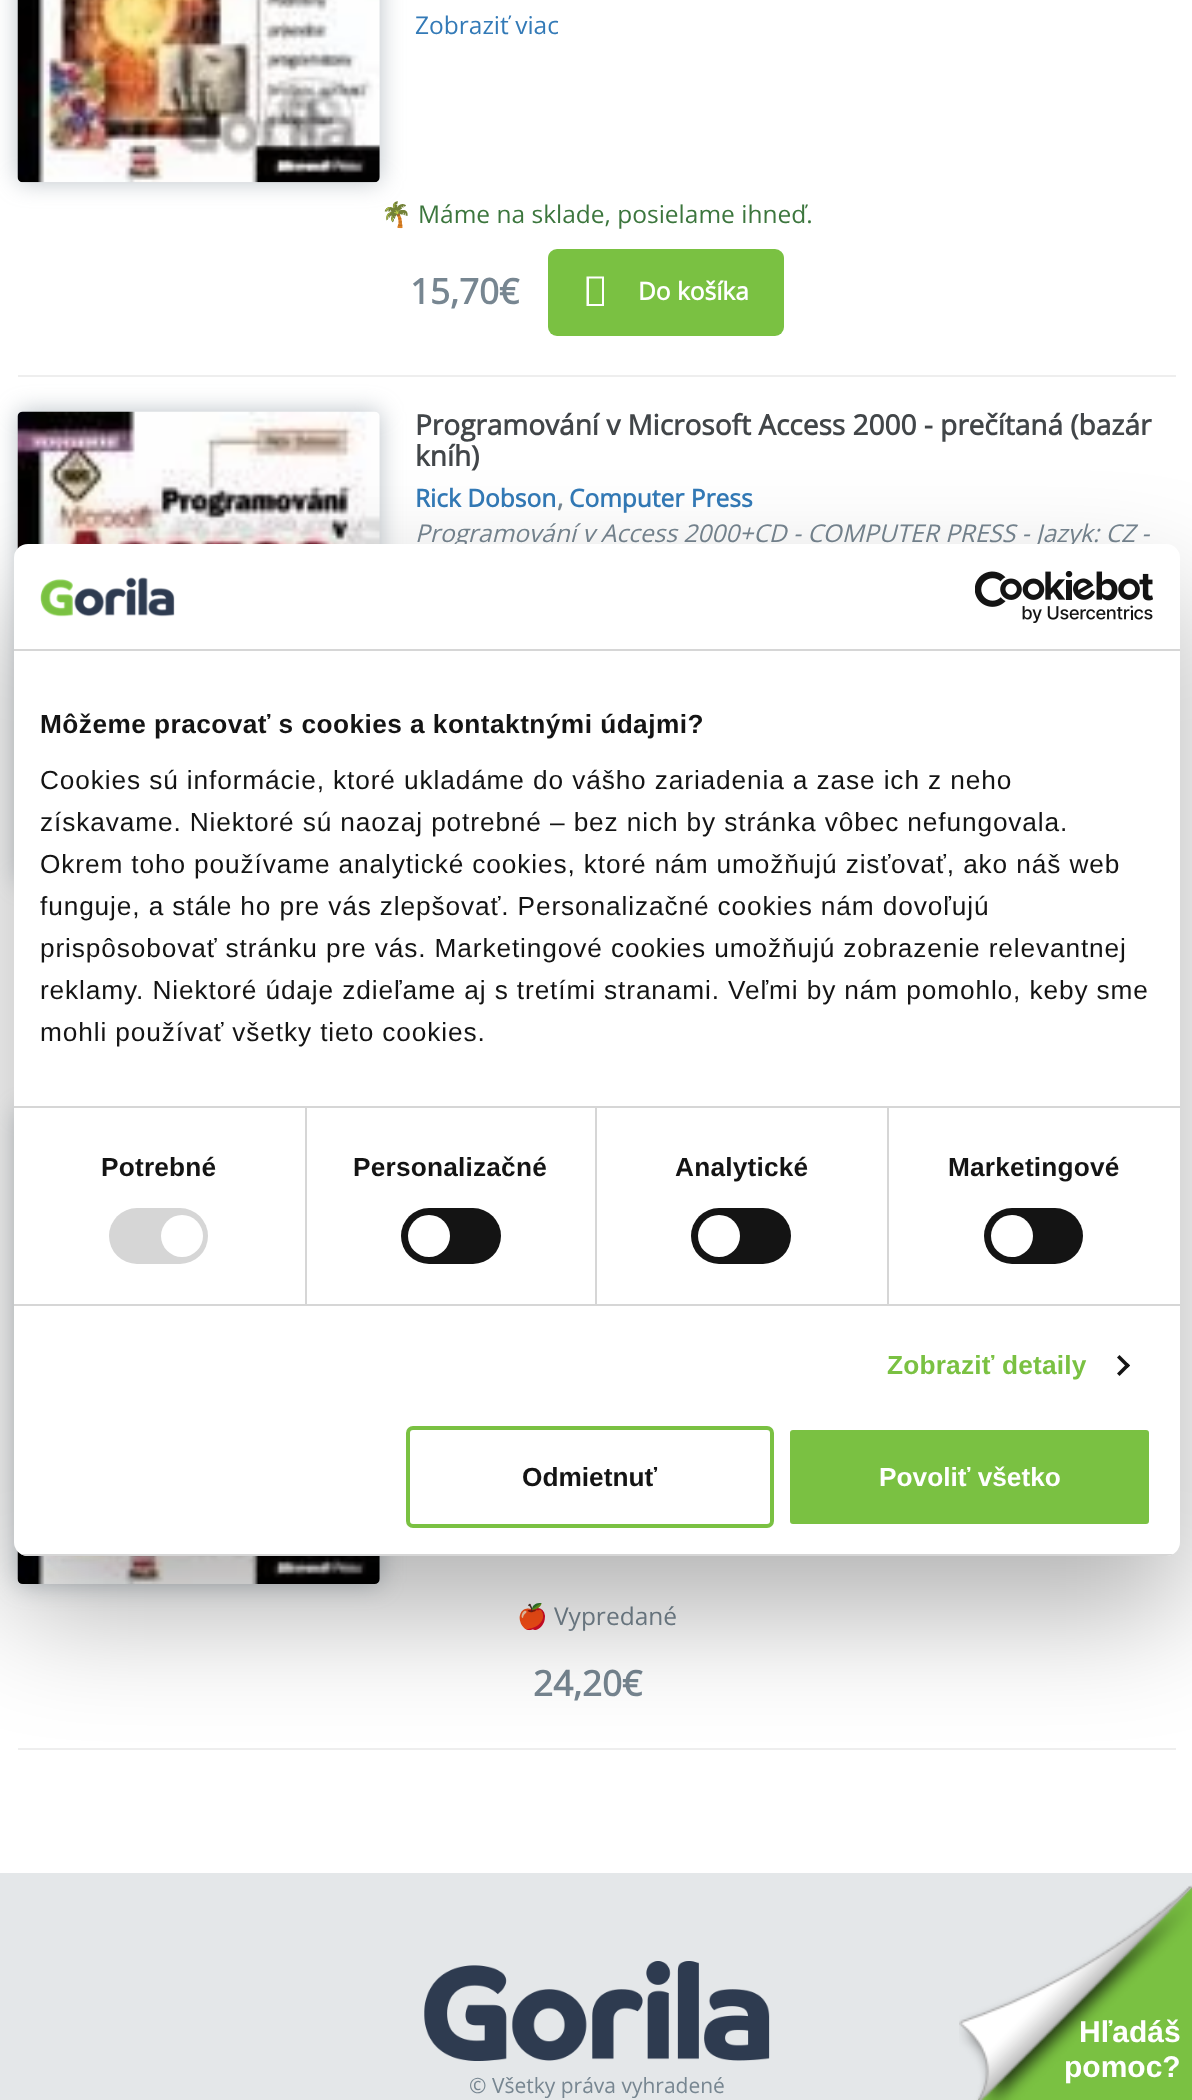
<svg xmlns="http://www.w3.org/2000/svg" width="1192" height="2100">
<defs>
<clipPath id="clip1"><rect x="14" y="544" width="1166" height="1012" rx="14"/></clipPath>
</defs>
<rect width="100%" height="100%" fill="#fff"/>
<rect x="18" y="-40" width="362" height="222" rx="5" fill="#77869180" filter="blur(11.5px)"/>
<image x="17" y="0" width="363" height="183" href="media/1.png"/>
<text x="415" y="34" style="font-family:Open Sans;font-size:24.5px;fill:#337ab7">Zobraziť viac</text>
<text x="381" y="223" style="font-family:Noto Color Emoji;font-size:24.5px;fill:#3c763d">🌴</text>
<text x="418" y="223" style="font-family:Open Sans;font-size:24.5px;fill:#3c763d">Máme na sklade, posielame ihneď.</text>
<text x="410" y="304" style="font-family:Open Sans;font-size:35px;font-weight:bold;fill:#778691">15,70€</text>
<rect x="548" y="249" width="236" height="87" rx="9" fill="#7ac142"/>
<path d="M586.5 306v-29.5h17.5v29.5zm2.5-2h13v-25.5h-13z" fill="#fff"/>
<text x="638" y="300" style="font-family:Open Sans;font-size:24.5px;font-weight:bold;fill:#fff">Do košíka</text>
<rect x="18" y="375" width="1158" height="2" fill="#eee"/>
<rect x="18" y="411" width="362" height="471" rx="5" fill="#77869180" filter="blur(11.5px)"/>
<image x="17" y="411" width="363" height="139" href="media/2.png"/>
<text x="415" y="435" style="font-family:Open Sans;font-size:28px;font-weight:bold;fill:#424649">Programování v Microsoft Access 2000 - prečítaná (bazár</text>
<text x="415" y="466" style="font-family:Open Sans;font-size:28px;font-weight:bold;fill:#424649">kníh)</text>
<text x="415" y="507" style="font-family:Open Sans;font-size:24.5px;font-weight:bold;fill:#337ab7">Rick Dobson</text>
<text x="557" y="507" style="font-family:Open Sans;font-size:24.5px;font-weight:bold;fill:#778691">,</text>
<text x="569" y="507" style="font-family:Open Sans;font-size:24.5px;font-weight:bold;fill:#337ab7">Computer Press</text>
<text x="415" y="542" style="font-family:Open Sans;font-size:24.5px;font-style:italic;fill:#778691">Programování v Access 2000+CD - COMPUTER PRESS - Jazyk: CZ -</text>
<rect x="18" y="1111" width="362" height="473" rx="5" fill="#77869180" filter="blur(11.5px)"/>
<image x="17" y="1550" width="363" height="34" href="media/3.png"/>
<text x="517" y="1625" style="font-family:Noto Color Emoji;font-size:24.5px;fill:#778691">🍎</text>
<text x="554" y="1625" style="font-family:Open Sans;font-size:24.5px;fill:#778691">Vypredané</text>
<text x="533" y="1696" style="font-family:Open Sans;font-size:35px;font-weight:bold;fill:#778691">24,20€</text>
<rect x="18" y="1748" width="1158" height="2" fill="#eee"/>
<rect x="14" y="600" width="1166" height="1012" rx="14" fill="#0000004d" filter="blur(59.5px)"/>
<rect x="14" y="544" width="1166" height="1012" rx="14" fill="#fff"/>
<rect x="14" y="649" width="1166" height="2" fill="#d6d6d6"/>
<image x="40" y="577" width="135" height="40" href="media/4.png"/>
<image x="975" y="571" width="178" height="52" href="media/5.png"/>
<rect x="14" y="1106" width="1166" height="2" fill="#d6d6d6"/>
<text x="40" y="733" style="font-family:Liberation Sans;font-size:26.25px;font-weight:bold;letter-spacing:0.45px;fill:#141414">Môžeme pracovať s cookies a kontaktnými údajmi?</text>
<text x="40" y="789" style="font-family:Liberation Sans;font-size:26.25px;letter-spacing:0.88px;fill:#141414">Cookies sú informácie, ktoré ukladáme do vášho zariadenia a zase ich z neho</text>
<text x="40" y="831" style="font-family:Liberation Sans;font-size:26.25px;letter-spacing:0.88px;fill:#141414">získavame. Niektoré sú naozaj potrebné – bez nich by stránka vôbec nefungovala.</text>
<text x="40" y="873" style="font-family:Liberation Sans;font-size:26.25px;letter-spacing:0.88px;fill:#141414">Okrem toho používame analytické cookies, ktoré nám umožňujú zisťovať, ako náš web</text>
<text x="40" y="915" style="font-family:Liberation Sans;font-size:26.25px;letter-spacing:0.88px;fill:#141414">funguje, a stále ho pre vás zlepšovať. Personalizačné cookies nám dovoľujú</text>
<text x="40" y="957" style="font-family:Liberation Sans;font-size:26.25px;letter-spacing:0.88px;fill:#141414">prispôsobovať stránku pre vás. Marketingové cookies umožňujú zobrazenie relevantnej</text>
<text x="40" y="999" style="font-family:Liberation Sans;font-size:26.25px;letter-spacing:0.88px;fill:#141414">reklamy. Niektoré údaje zdieľame aj s tretími stranami. Veľmi by nám pomohlo, keby sme</text>
<text x="40" y="1041" style="font-family:Liberation Sans;font-size:26.25px;letter-spacing:0.88px;fill:#141414">mohli používať všetky tieto cookies.</text>
<rect x="14" y="1304" width="1166" height="2" fill="#d6d6d6"/>
<rect x="305" y="1108" width="2" height="196" fill="#d6d6d6"/>
<text x="101" y="1176" style="font-family:Liberation Sans;font-size:26.25px;font-weight:bold;letter-spacing:0.2px;fill:#141414">Potrebné</text>
<rect x="109" y="1208" width="99" height="56" rx="28" fill="#d6d6d6"/>
<circle cx="182" cy="1236" r="21" fill="#fff"/>
<rect x="595" y="1108" width="2" height="196" fill="#d6d6d6"/>
<text x="353" y="1176" style="font-family:Liberation Sans;font-size:26.25px;font-weight:bold;letter-spacing:0.2px;fill:#141414">Personalizačné</text>
<rect x="401" y="1208" width="100" height="56" rx="28" fill="#141414"/>
<circle cx="429" cy="1236" r="21" fill="#fff"/>
<rect x="887" y="1108" width="2" height="196" fill="#d6d6d6"/>
<text x="675" y="1176" style="font-family:Liberation Sans;font-size:26.25px;font-weight:bold;letter-spacing:0.2px;fill:#141414">Analytické</text>
<rect x="691" y="1208" width="100" height="56" rx="28" fill="#141414"/>
<circle cx="719" cy="1236" r="21" fill="#fff"/>
<text x="948" y="1176" style="font-family:Liberation Sans;font-size:26.25px;font-weight:bold;letter-spacing:0.2px;fill:#141414">Marketingové</text>
<rect x="984" y="1208" width="99" height="56" rx="28" fill="#141414"/>
<circle cx="1012" cy="1236" r="21" fill="#fff"/>
<text x="887" y="1374" style="font-family:Liberation Sans;font-size:26.25px;font-weight:bold;letter-spacing:0.2px;fill:#7ac142">Zobraziť detaily</text>
<path d="M1119.5 1355l10.5 10.5l-2.5 2.5l-10.5-10.5z" fill="#141414"/>
<path d="M1127.5 1363l2.5 2.5l-10.5 10.5l-2.5-2.5z" fill="#141414"/>
<g clip-path="url(#clip1)">
<rect x="14" y="1554" width="1166" height="2" fill="#d6d6d6"/>
</g>
<rect x="408" y="1428" width="364" height="98" rx="5" fill="none" stroke="#7ac142" stroke-width="4"/>
<text x="522" y="1486" style="font-family:Liberation Sans;font-size:26.25px;font-weight:bold;fill:#141414">Odmietnuť</text>
<rect x="788" y="1428" width="363" height="98" rx="5" fill="#7ac142" stroke="#fff" stroke-width="4"/>
<text x="879" y="1486" style="font-family:Liberation Sans;font-size:26.25px;font-weight:bold;fill:#fff">Povoliť všetko</text>
<rect y="1873" width="1192" height="227" fill="#e4e7e9"/>
<path d="M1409 2100h-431l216-215z" fill="#7ac142"/>
<image x="959" y="1885" width="233" height="215" href="media/6.png"/>
<text x="1079" y="2042" style="font-family:Liberation Sans;font-size:30px;font-weight:bold;fill:#fff">Hľadáš</text>
<text x="1064" y="2077" style="font-family:Liberation Sans;font-size:30px;font-weight:bold;fill:#fff">pomoc?</text>
<image x="424" y="1961" width="346" height="100" href="media/7.png"/>
<text x="469" y="2093" style="font-family:Open Sans;font-size:21px;fill:#778691">© Všetky práva vyhradené</text>
</svg>
